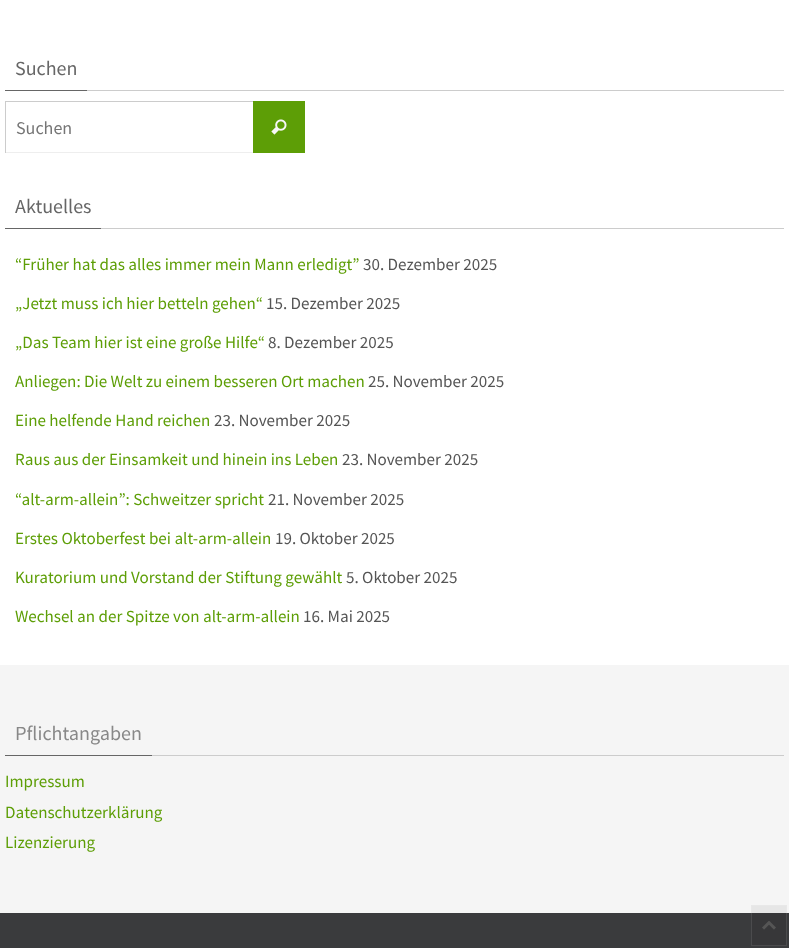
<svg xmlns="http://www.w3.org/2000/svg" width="789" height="948">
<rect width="100%" height="100%" fill="#fff"/>
<rect x="87" y="90" width="697" height="1" fill="#ccc"/>
<rect x="5" y="90" width="82" height="1" fill="#666"/>
<text x="15" y="75" style="font-family:Source Sans Pro;font-size:20px;fill:#666">Suchen</text>
<rect x="253" y="101" width="52" height="52" fill="#5d9e06"/>
<rect x="5" y="101" width="248" height="1" fill="#ccc"/>
<rect x="5" y="152" width="248" height="1" fill="#eee"/>
<rect x="5" y="101" width="1" height="52" fill="#ccc"/>
<text x="16" y="134" style="font-family:Source Sans Pro;font-size:18px;fill:#757575">Suchen</text>
<image x="271" y="119" width="16" height="16" href="media/1.png"/>
<rect x="101" y="228" width="683" height="1" fill="#ccc"/>
<rect x="5" y="228" width="96" height="1" fill="#666"/>
<text x="15" y="213" style="font-family:Source Sans Pro;font-size:20px;fill:#666">Aktuelles</text>
<text x="15" y="270" style="font-family:Source Sans Pro;font-size:17px;fill:#5d9e06">“Früher hat das alles immer mein Mann erledigt”</text>
<text x="363" y="270" style="font-family:Source Sans Pro;font-size:17px;fill:#555">30. Dezember 2025</text>
<text x="15" y="309" style="font-family:Source Sans Pro;font-size:17px;fill:#5d9e06">„Jetzt muss ich hier betteln gehen“</text>
<text x="266" y="309" style="font-family:Source Sans Pro;font-size:17px;fill:#555">15. Dezember 2025</text>
<text x="15" y="348" style="font-family:Source Sans Pro;font-size:17px;fill:#5d9e06">„Das Team hier ist eine große Hilfe“</text>
<text x="268" y="348" style="font-family:Source Sans Pro;font-size:17px;fill:#555">8. Dezember 2025</text>
<text x="15" y="387" style="font-family:Source Sans Pro;font-size:17px;fill:#5d9e06">Anliegen: Die Welt zu einem besseren Ort machen</text>
<text x="368" y="387" style="font-family:Source Sans Pro;font-size:17px;fill:#555">25. November 2025</text>
<text x="15" y="426" style="font-family:Source Sans Pro;font-size:17px;fill:#5d9e06">Eine helfende Hand reichen</text>
<text x="214" y="426" style="font-family:Source Sans Pro;font-size:17px;fill:#555">23. November 2025</text>
<text x="15" y="465" style="font-family:Source Sans Pro;font-size:17px;fill:#5d9e06">Raus aus der Einsamkeit und hinein ins Leben</text>
<text x="342" y="465" style="font-family:Source Sans Pro;font-size:17px;fill:#555">23. November 2025</text>
<text x="15" y="505" style="font-family:Source Sans Pro;font-size:17px;fill:#5d9e06">“alt-arm-allein”: Schweitzer spricht</text>
<text x="268" y="505" style="font-family:Source Sans Pro;font-size:17px;fill:#555">21. November 2025</text>
<text x="15" y="544" style="font-family:Source Sans Pro;font-size:17px;fill:#5d9e06">Erstes Oktoberfest bei alt-arm-allein</text>
<text x="275" y="544" style="font-family:Source Sans Pro;font-size:17px;fill:#555">19. Oktober 2025</text>
<text x="15" y="583" style="font-family:Source Sans Pro;font-size:17px;fill:#5d9e06">Kuratorium und Vorstand der Stiftung gewählt</text>
<text x="346" y="583" style="font-family:Source Sans Pro;font-size:17px;fill:#555">5. Oktober 2025</text>
<text x="15" y="622" style="font-family:Source Sans Pro;font-size:17px;fill:#5d9e06">Wechsel an der Spitze von alt-arm-allein</text>
<text x="303" y="622" style="font-family:Source Sans Pro;font-size:17px;fill:#555">16. Mai 2025</text>
<rect y="665" width="789" height="248" fill="#f5f5f5"/>
<rect x="751" y="905" width="36" height="8" fill="#e6e6e6"/>
<rect x="152" y="755" width="632" height="1" fill="#ccc"/>
<rect x="5" y="755" width="147" height="1" fill="#666"/>
<text x="15" y="740" style="font-family:Source Sans Pro;font-size:20px;fill:#888">Pflichtangaben</text>
<text x="5" y="787" style="font-family:Source Sans Pro;font-size:17px;fill:#5d9e06">Impressum</text>
<text x="5" y="818" style="font-family:Source Sans Pro;font-size:17px;fill:#5d9e06">Datenschutzerklärung</text>
<text x="5" y="848" style="font-family:Source Sans Pro;font-size:17px;fill:#5d9e06">Lizenzierung</text>
<rect y="913" width="789" height="35" fill="#3a3b3d"/>
<rect x="751" y="913" width="36" height="33" fill="#373739"/>
<rect x="751.5" y="905.5" width="35" height="40" fill="none" stroke="#ffffff1a"/>
<image x="762" y="921" width="14" height="9" href="media/2.png"/>
</svg>
